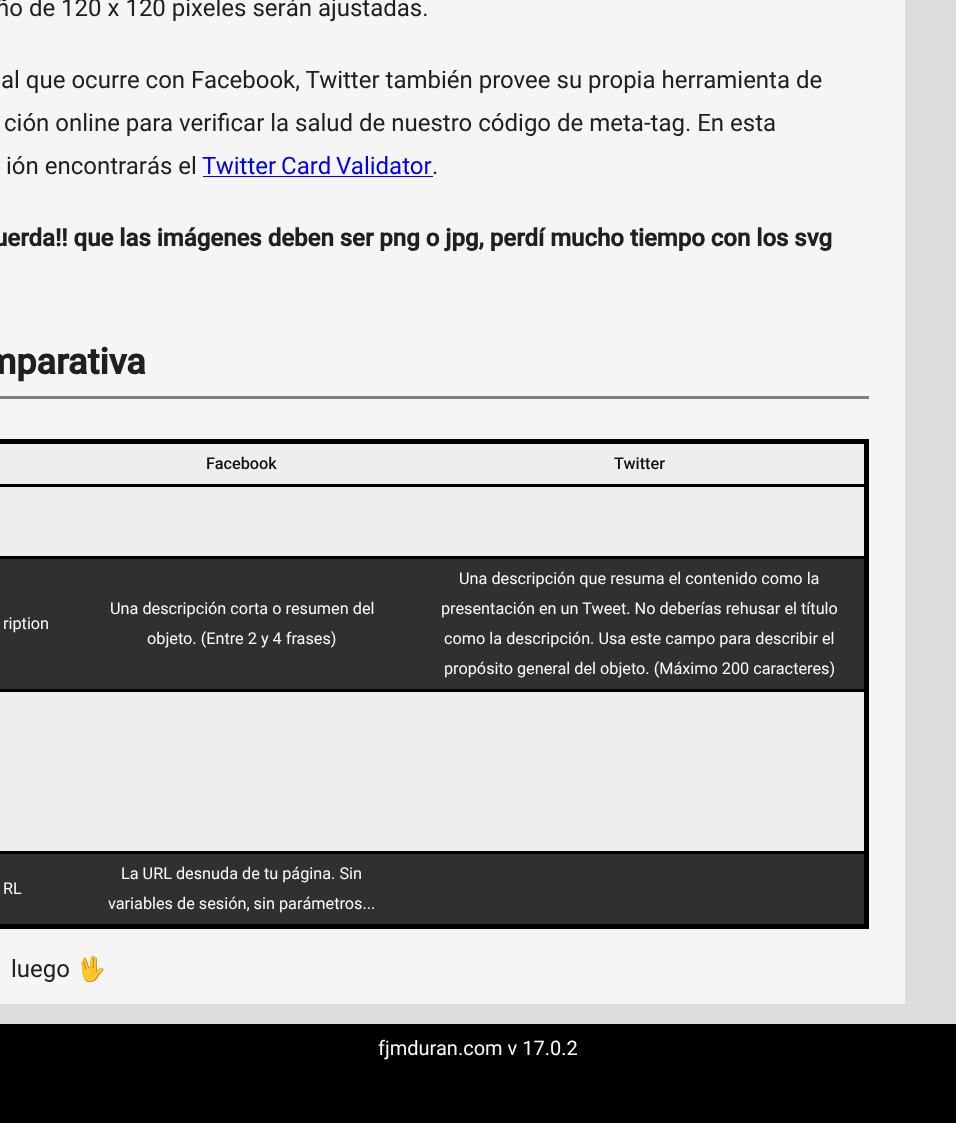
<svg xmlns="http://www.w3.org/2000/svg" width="956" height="1123">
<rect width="100%" height="100%" fill="#dcdcdc"/>
<rect width="905" height="1004" fill="#f5f5f5"/>
<text x="-4" y="16" style="font-family:Roboto;font-size:24px;fill:#202020">ño de 120 x 120 pixeles serán ajustadas.</text>
<text x="1" y="88" style="font-family:Roboto;font-size:24px;fill:#202020">al que ocurre con Facebook, Twitter también provee su propia herramienta de</text>
<text x="4" y="131" style="font-family:Roboto;font-size:24px;fill:#202020">ción online para verificar la salud de nuestro código de meta-tag. En esta</text>
<text x="6" y="174" style="font-family:Roboto;font-size:24px;fill:#202020">ión encontrarás el</text>
<text x="202" y="174" word-spacing="-1" style="font-family:Roboto;font-size:24px;fill:#00e">Twitter Card Validator</text>
<rect x="203" y="176" width="230" height="1" fill="#00e"/>
<text x="432" y="174" style="font-family:Roboto;font-size:24px;fill:#202020">.</text>
<text x="-6" y="246" style="font-family:Roboto;font-size:24px;font-weight:bold;fill:#202020">uerda!! que las imágenes deben ser png o jpg, perdí mucho tiempo con los svg</text>
<rect y="396" width="869" height="3" fill="#808080"/>
<text x="-15" y="374" style="font-family:Roboto;font-size:36px;font-weight:bold;fill:#202020">mparativa</text>
<rect y="559" width="864" height="365" fill="#303030"/>
<rect y="439" width="869" height="5" fill="#000"/>
<rect y="484" width="868" height="3" fill="#000"/>
<rect y="556" width="868" height="3" fill="#000"/>
<rect y="689" width="868" height="3" fill="#000"/>
<rect y="851" width="868" height="3" fill="#000"/>
<rect x="864" y="439" width="5" height="490" fill="#000"/>
<rect y="924" width="869" height="5" fill="#000"/>
<rect y="444" width="864" height="40" fill="#eee"/>
<text x="206" y="469" style="font-family:Roboto;font-size:16.25px;font-weight:500;fill:#111">Facebook</text>
<text x="614" y="469" style="font-family:Roboto;font-size:16.25px;font-weight:500;fill:#111">Twitter</text>
<rect y="487" width="864" height="69" fill="#eee"/>
<text x="3" y="629" style="font-family:Roboto;font-size:16.25px;fill:#fafafa">ription</text>
<text x="110" y="614" style="font-family:Roboto;font-size:16.25px;fill:#fafafa">Una descripción corta o resumen del</text>
<text x="147" y="644" style="font-family:Roboto;font-size:16.25px;fill:#fafafa">objeto. (Entre 2 y 4 frases)</text>
<text x="459" y="584" style="font-family:Roboto;font-size:16.25px;fill:#fafafa">Una descripción que resuma el contenido como la</text>
<text x="441" y="614" style="font-family:Roboto;font-size:16.25px;fill:#fafafa">presentación en un Tweet. No deberías rehusar el título</text>
<text x="444" y="644" style="font-family:Roboto;font-size:16.25px;fill:#fafafa">como la descripción. Usa este campo para describir el</text>
<text x="444" y="674" style="font-family:Roboto;font-size:16.25px;fill:#fafafa">propósito general del objeto. (Máximo 200 caracteres)</text>
<rect y="692" width="864" height="159" fill="#eee"/>
<text x="3" y="894" style="font-family:Roboto;font-size:16.25px;fill:#fafafa">RL</text>
<text x="121" y="879" style="font-family:Roboto;font-size:16.25px;fill:#fafafa">La URL desnuda de tu página. Sin</text>
<text x="108" y="909" style="font-family:Roboto;font-size:16.25px;fill:#fafafa">variables de sesión, sin parámetros...</text>
<text x="11" y="977" style="font-family:Roboto;font-size:24px;fill:#202020">luego</text>
<text x="76" y="977" style="font-family:Noto Color Emoji;font-size:24px;fill:#202020">🖖</text>
<rect y="1024" width="956" height="99" fill="#000"/>
<text x="378" y="1055" style="font-family:Roboto;font-size:20px;fill:#fafafa">fjmduran.com v 17.0.2</text>
</svg>
